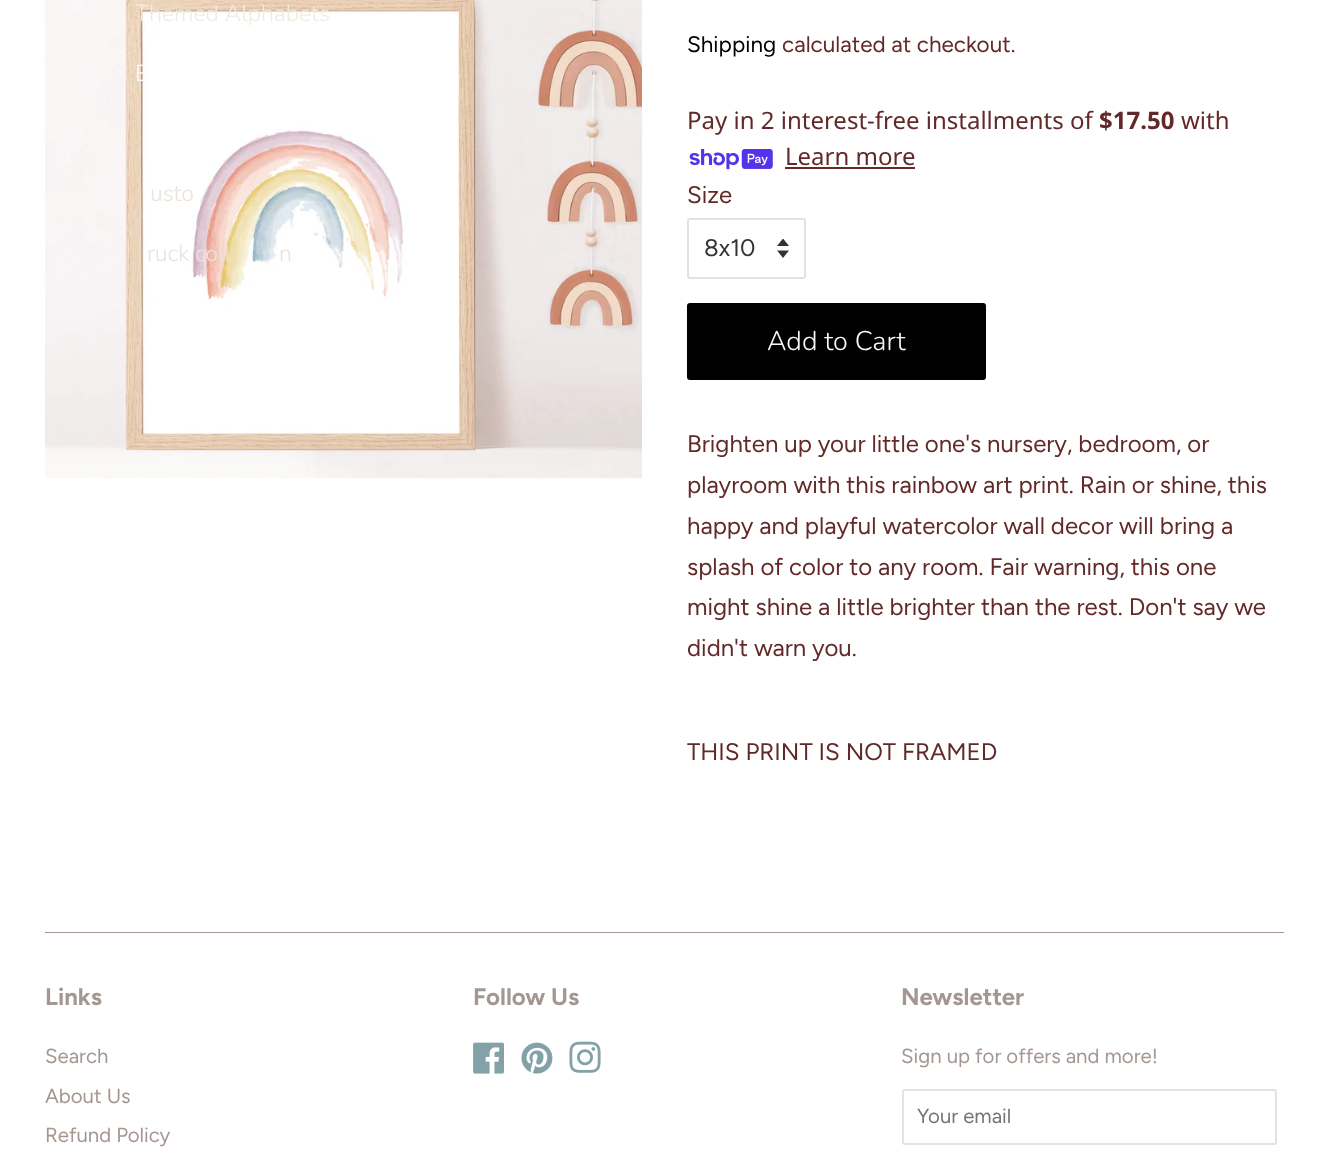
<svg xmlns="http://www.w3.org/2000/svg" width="1329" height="1152">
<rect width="100%" height="100%" fill="#fff"/>
<image x="45" y="0" width="597" height="479" href="media/1.png"/>
<text x="135" y="21" style="font-family:Nunito;font-size:23px;font-weight:300;fill:#f3eae2">Themed Alphabets</text>
<text x="135" y="81" style="font-family:Nunito;font-size:23px;font-weight:300;fill:#fafafa">E</text>
<text x="150" y="201" style="font-family:Nunito;font-size:23px;font-weight:300;fill:#ebe2db">usto</text>
<text x="147" y="261" style="font-family:Nunito;font-size:23px;font-weight:300;fill:#ebe2db">ruck coll</text>
<text x="279" y="261" style="font-family:Nunito;font-size:23px;font-weight:300;fill:#ebe2db">n</text>
<text x="687" y="52" style="font-family:Figtree;font-size:22.5px;fill:#000">Shipping</text>
<text x="782" y="52" style="font-family:Figtree;font-size:22.5px;fill:#632929">calculated at checkout.</text>
<text x="687" y="129" style="font-family:Noto Sans;font-size:24px;fill:#632929">Pay in 2 interest-free installments of</text>
<text x="1099" y="129" style="font-family:Noto Sans;font-size:24px;font-weight:bold;fill:#632929">$17.50</text>
<text x="1181" y="129" style="font-family:Noto Sans;font-size:24px;fill:#632929">with</text>
<image x="689" y="149" width="84" height="21" href="media/2.png"/>
<text x="785" y="165" style="font-family:Noto Sans;font-size:24px;fill:#632929">Learn more</text>
<rect x="785" y="167" width="130" height="2" fill="#632929"/>
<text x="687" y="203" style="font-family:Figtree;font-size:24px;fill:#632929">Size</text>
<image x="777" y="239" width="12" height="19" href="media/3.png"/>
<rect x="688" y="219" width="117" height="59" rx="2" fill="none" stroke="#e8dfdf" stroke-width="2"/>
<text x="704" y="256" style="font-family:Figtree;font-size:24px;fill:#333">8x10</text>
<rect x="687" y="303" width="299" height="77" rx="3" fill="#000"/>
<text x="767" y="350" style="font-family:Nunito;font-size:27px;font-weight:300;fill:#fafafa">Add to Cart</text>
<text x="687" y="452" style="font-family:Figtree;font-size:24px;fill:#632929">Brighten up your little one's nursery, bedroom, or</text>
<text x="687" y="493" style="font-family:Figtree;font-size:24px;fill:#632929">playroom with this rainbow art print. Rain or shine, this</text>
<text x="687" y="534" style="font-family:Figtree;font-size:24px;fill:#632929">happy and playful watercolor wall decor will bring a</text>
<text x="687" y="575" style="font-family:Figtree;font-size:24px;fill:#632929">splash of color to any room. Fair warning, this one</text>
<text x="687" y="615" style="font-family:Figtree;font-size:24px;fill:#632929">might shine a little brighter than the rest. Don't say we</text>
<text x="687" y="656" style="font-family:Figtree;font-size:24px;fill:#632929">didn't warn you.</text>
<text x="687" y="760" style="font-family:Figtree;font-size:24px;fill:#632929">THIS PRINT IS NOT FRAMED</text>
<rect x="45" y="932" width="1239" height="1" fill="#a49791"/>
<text x="45" y="1005" style="font-family:Figtree;font-size:24px;font-weight:bold;fill:#a49791">Links</text>
<text x="45" y="1063" style="font-family:Figtree;font-size:20.4px;fill:#a49791">Search</text>
<text x="45" y="1103" style="font-family:Figtree;font-size:20.4px;fill:#a49791">About Us</text>
<text x="45" y="1142" style="font-family:Figtree;font-size:20.4px;fill:#a49791">Refund Policy</text>
<text x="473" y="1005" style="font-family:Figtree;font-size:24px;font-weight:bold;fill:#a49791">Follow Us</text>
<image x="473" y="1042" width="31" height="32" href="media/4.png"/>
<image x="521" y="1042" width="32" height="32" href="media/5.png"/>
<image x="569" y="1041" width="32" height="32" href="media/6.png"/>
<text x="901" y="1005" style="font-family:Figtree;font-size:24px;font-weight:bold;fill:#a49791">Newsletter</text>
<text x="901" y="1063" style="font-family:Figtree;font-size:20.4px;fill:#a49791">Sign up for offers and more!</text>
<rect x="903" y="1090" width="373" height="54" rx="2" fill="none" stroke="#e8dfdf" stroke-width="2"/>
<text x="917" y="1123" style="font-family:Figtree;font-size:20.4px;fill:#757575">Your email</text>
</svg>
